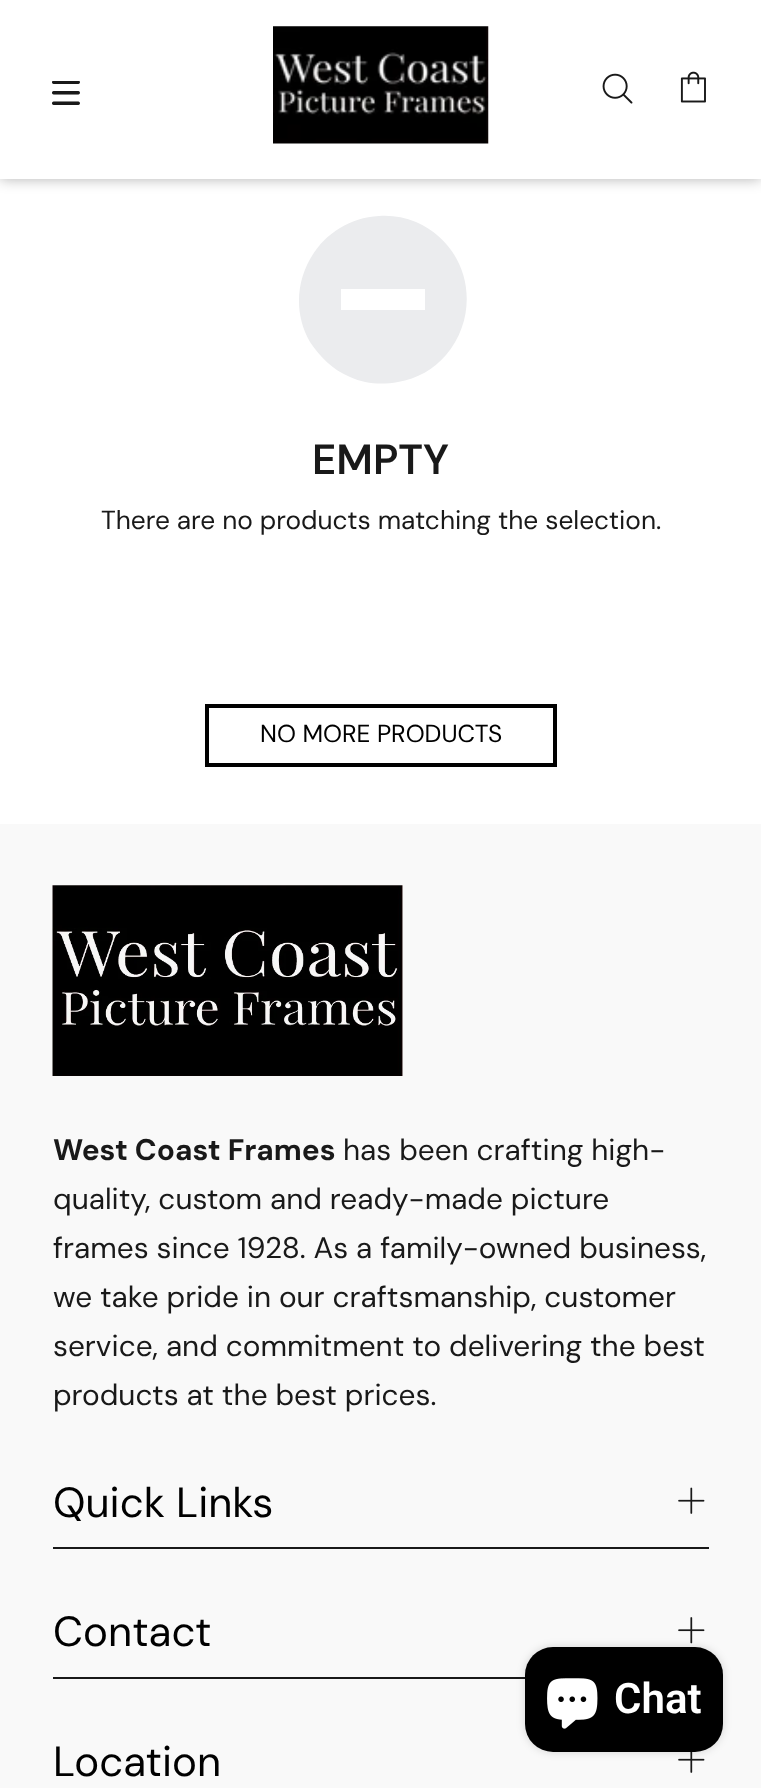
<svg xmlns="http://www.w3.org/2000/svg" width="761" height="1788">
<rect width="100%" height="100%" fill="#fff"/>
<rect width="761" height="179" fill="#0000004d" filter="blur(7px)"/>
<rect width="761" height="179" fill="#fff"/>
<image x="52" y="81" width="28" height="24" href="media/1.png"/>
<image x="273" y="26" width="216" height="118" href="media/2.png"/>
<image x="602" y="73" width="31" height="31" href="media/3.png"/>
<image x="680" y="71" width="26" height="32" href="media/4.png"/>
<path d="M416 222c53 23 67 89 30 133c-12 14-29 24-48 27c-16 3-33 2-48-5c-17-7-30-20-40-35c-31-54 7-123 69-126c12-1 25 1 37 6zm9 67h-84v21h84z" fill="#ebecee"/>
<text x="312" y="474" style="font-family:DM Sans;font-size:42px;font-weight:600;fill:#191919">EMPTY</text>
<text x="101" y="529" style="font-family:DM Sans;font-size:26.25px;fill:#191919">There are no products matching the selection.</text>
<rect x="207" y="706" width="348" height="59" fill="none" stroke="#000" stroke-width="4"/>
<text x="260" y="742" style="font-family:DM Sans;font-size:24.5px;fill:#000">NO MORE PRODUCTS</text>
<rect y="824" width="761" height="964" fill="#f9f9f9"/>
<image x="52" y="885" width="351" height="191" href="media/5.png"/>
<text x="53" y="1160" style="font-family:DM Sans;font-size:29.75px;font-weight:bold;fill:#191919">West Coast Frames</text>
<text x="343" y="1160" style="font-family:DM Sans;font-size:29.75px;fill:#191919">has been crafting high-</text>
<text x="53" y="1209" style="font-family:DM Sans;font-size:29.75px;fill:#191919">quality, custom and ready-made picture</text>
<text x="53" y="1258" style="font-family:DM Sans;font-size:29.75px;fill:#191919">frames since 1928. As a family-owned business,</text>
<text x="53" y="1307" style="font-family:DM Sans;font-size:29.75px;fill:#191919">we take pride in our craftsmanship, customer</text>
<text x="53" y="1356" style="font-family:DM Sans;font-size:29.75px;fill:#191919">service, and commitment to delivering the best</text>
<text x="53" y="1405" style="font-family:DM Sans;font-size:29.75px;fill:#191919">products at the best prices.</text>
<rect x="53" y="1547" width="656" height="2" fill="#191919"/>
<text x="53" y="1517" style="font-family:DM Sans;font-size:42px;fill:#000">Quick Links</text>
<image x="678" y="1487" width="27" height="27" href="media/6.png"/>
<rect x="53" y="1677" width="472" height="2" fill="#191919"/>
<text x="53" y="1646" style="font-family:DM Sans;font-size:42px;fill:#000">Contact</text>
<image x="678" y="1617" width="27" height="27" href="media/7.png"/>
<text x="53" y="1776" style="font-family:DM Sans;font-size:42px;fill:#000">Location</text>
<image x="678" y="1752" width="27" height="21" href="media/8.png"/>
<rect x="525" y="1647" width="198" height="105" rx="28" fill="#00000026" filter="blur(4.5px)"/>
<rect x="525" y="1647" width="198" height="105" rx="28" fill="#000"/>
<image x="547" y="1678" width="51" height="51" href="media/9.png"/>
<text x="614" y="1713" style="font-family:Roboto;font-size:42px;font-weight:600;fill:#fff">Chat</text>
</svg>
